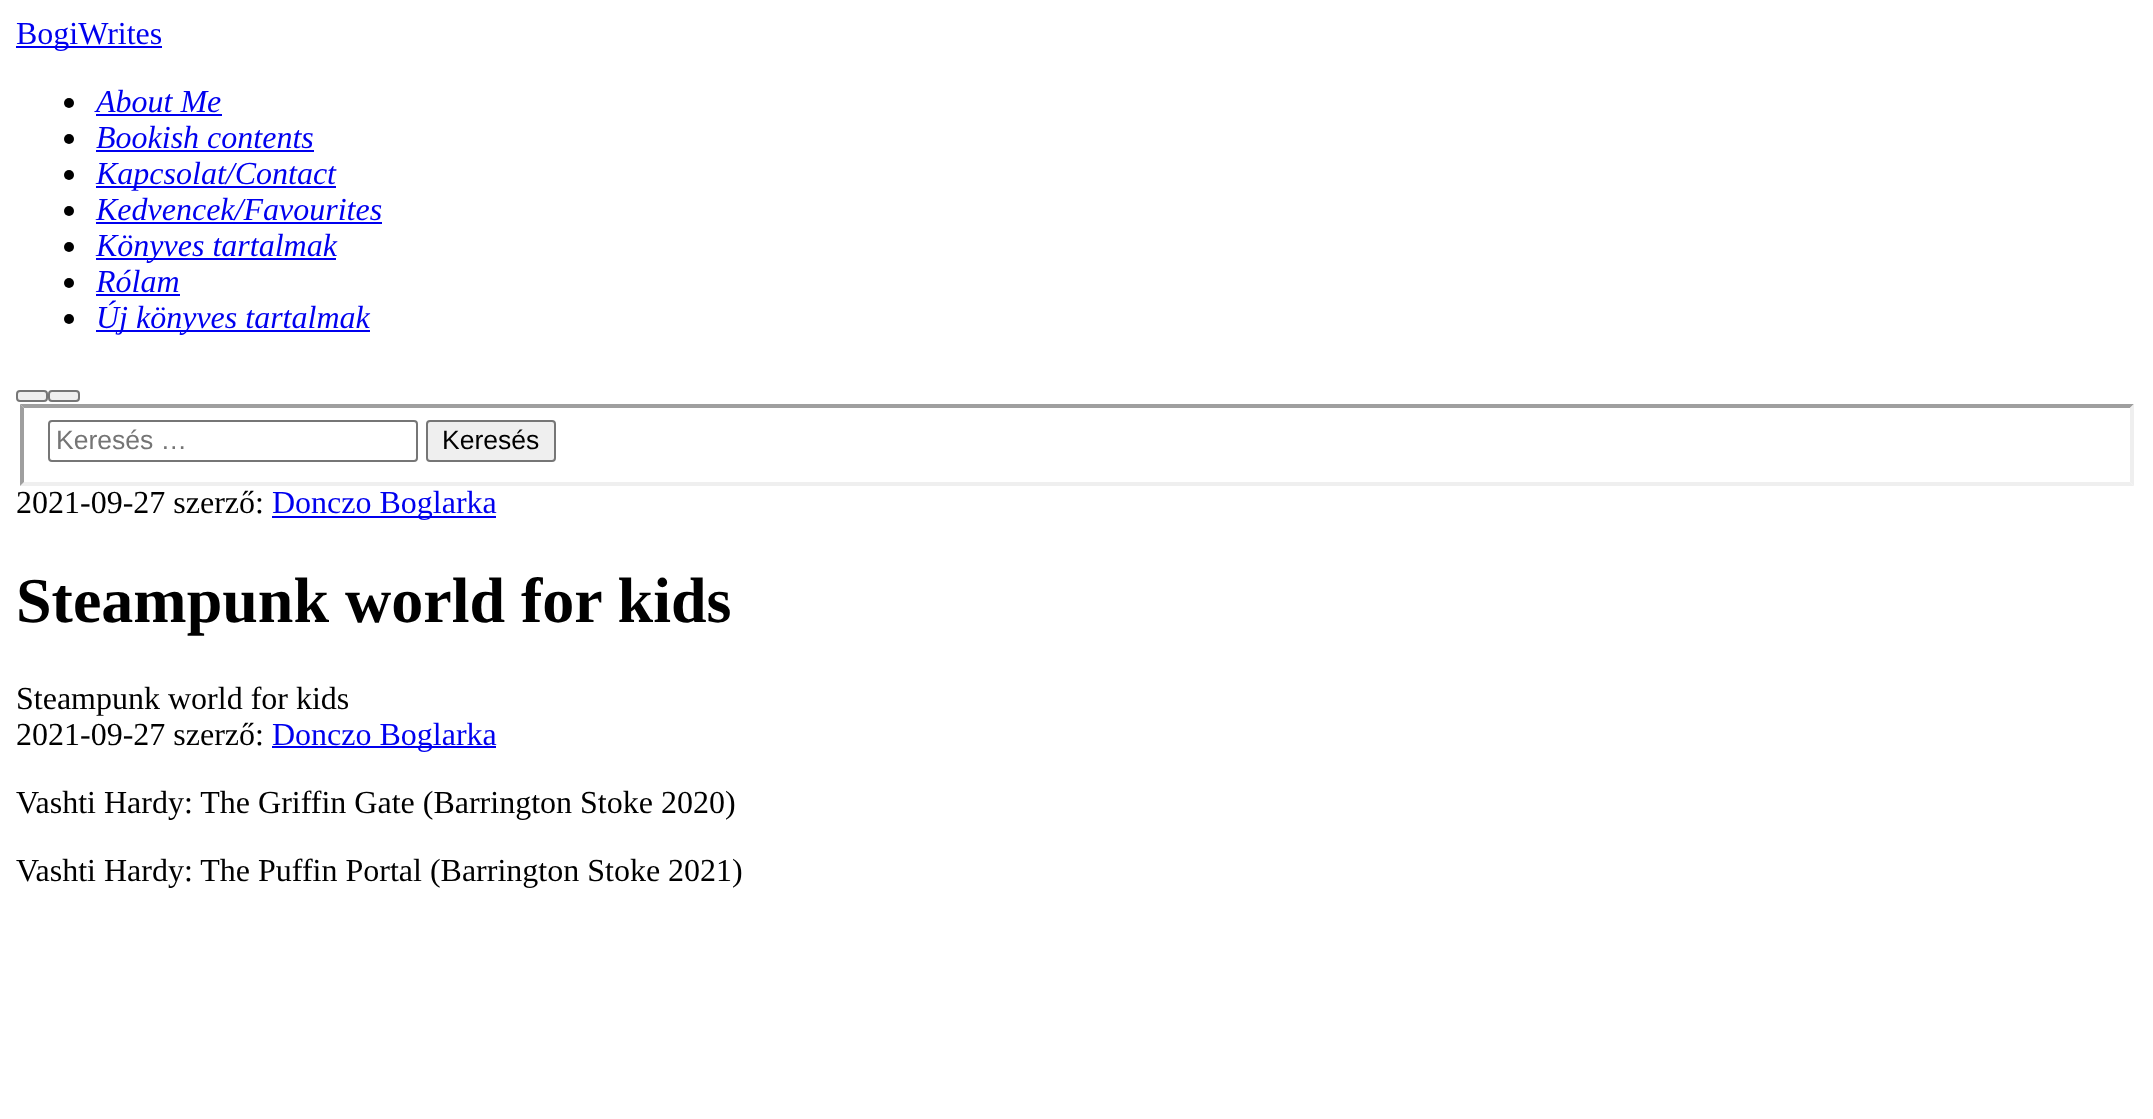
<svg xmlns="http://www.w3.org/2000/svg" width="2153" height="1119">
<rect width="100%" height="100%" fill="#fff"/>
<rect x="16" y="46" width="146" height="2" fill="#00e"/>
<text x="16" y="44" style="font-family:Liberation Serif;font-size:32px;fill:#00e">BogiWrites</text>
<circle cx="69" cy="103" r="5" fill="#000"/>
<text x="96" y="112" style="font-family:Liberation Serif;font-size:32px;font-style:italic;fill:#00e">About Me</text>
<rect x="96" y="114" width="126" height="2" fill="#00e"/>
<circle cx="69" cy="139" r="5" fill="#000"/>
<text x="96" y="148" style="font-family:Liberation Serif;font-size:32px;font-style:italic;fill:#00e">Bookish contents</text>
<rect x="96" y="150" width="218" height="2" fill="#00e"/>
<circle cx="69" cy="175" r="5" fill="#000"/>
<rect x="96" y="186" width="240" height="2" fill="#00e"/>
<text x="96" y="184" style="font-family:Liberation Serif;font-size:32px;font-style:italic;fill:#00e">Kapcsolat/Contact</text>
<circle cx="69" cy="211" r="5" fill="#000"/>
<text x="96" y="220" style="font-family:Liberation Serif;font-size:32px;font-style:italic;fill:#00e">Kedvencek/Favourites</text>
<rect x="96" y="222" width="286" height="2" fill="#00e"/>
<circle cx="69" cy="247" r="5" fill="#000"/>
<rect x="96" y="258" width="240" height="2" fill="#00e"/>
<text x="96" y="256" style="font-family:Liberation Serif;font-size:32px;font-style:italic;fill:#00e">Könyves tartalmak</text>
<circle cx="69" cy="283" r="5" fill="#000"/>
<text x="96" y="292" style="font-family:Liberation Serif;font-size:32px;font-style:italic;fill:#00e">Rólam</text>
<rect x="96" y="294" width="84" height="2" fill="#00e"/>
<circle cx="69" cy="319" r="5" fill="#000"/>
<rect x="96" y="330" width="274" height="2" fill="#00e"/>
<text x="96" y="328" style="font-family:Liberation Serif;font-size:32px;font-style:italic;fill:#00e">Új könyves tartalmak</text>
<rect x="17" y="391" width="30" height="10" rx="3" fill="#efefef" stroke="#767676" stroke-width="2"/>
<rect x="49" y="391" width="30" height="10" rx="3" fill="#efefef" stroke="#767676" stroke-width="2"/>
<path d="M20 404h2114l-4 4h-2106z" fill="#9f9f9f"/>
<path d="M2134 404v82l-4-4v-74z" fill="#efefef"/>
<path d="M2134 486h-2114l4-4h2106z" fill="#efefef"/>
<path d="M20 486v-82l4 4v74z" fill="#9f9f9f"/>
<rect x="49" y="421" width="368" height="40" rx="3" fill="none" stroke="#767676" stroke-width="2"/>
<text x="56" y="449" style="font-family:Liberation Sans;font-size:26.5px;fill:#757575">Keresés …</text>
<rect x="427" y="421" width="128" height="40" rx="3" fill="#efefef" stroke="#767676" stroke-width="2"/>
<text x="442" y="449" style="font-family:Liberation Sans;font-size:26.5px;fill:#000">Keresés</text>
<text x="16" y="513" style="font-family:Liberation Serif;font-size:32px;fill:#000">2021-09-27 szerző:</text>
<rect x="272" y="516" width="224" height="2" fill="#00e"/>
<text x="272" y="513" style="font-family:Liberation Serif;font-size:32px;fill:#00e">Donczo Boglarka</text>
<text x="16" y="622" style="font-family:Liberation Serif;font-size:64px;font-weight:bold;fill:#000">Steampunk world for kids</text>
<text x="16" y="709" style="font-family:Liberation Serif;font-size:32px;fill:#000">Steampunk world for kids</text>
<text x="16" y="745" style="font-family:Liberation Serif;font-size:32px;fill:#000">2021-09-27 szerző:</text>
<rect x="272" y="746" width="224" height="2" fill="#00e"/>
<text x="272" y="745" style="font-family:Liberation Serif;font-size:32px;fill:#00e">Donczo Boglarka</text>
<text x="16" y="813" style="font-family:Liberation Serif;font-size:32px;fill:#000">Vashti Hardy: The Griffin Gate (Barrington Stoke 2020)</text>
<text x="16" y="881" style="font-family:Liberation Serif;font-size:32px;fill:#000">Vashti Hardy: The Puffin Portal (Barrington Stoke 2021)</text>
</svg>
